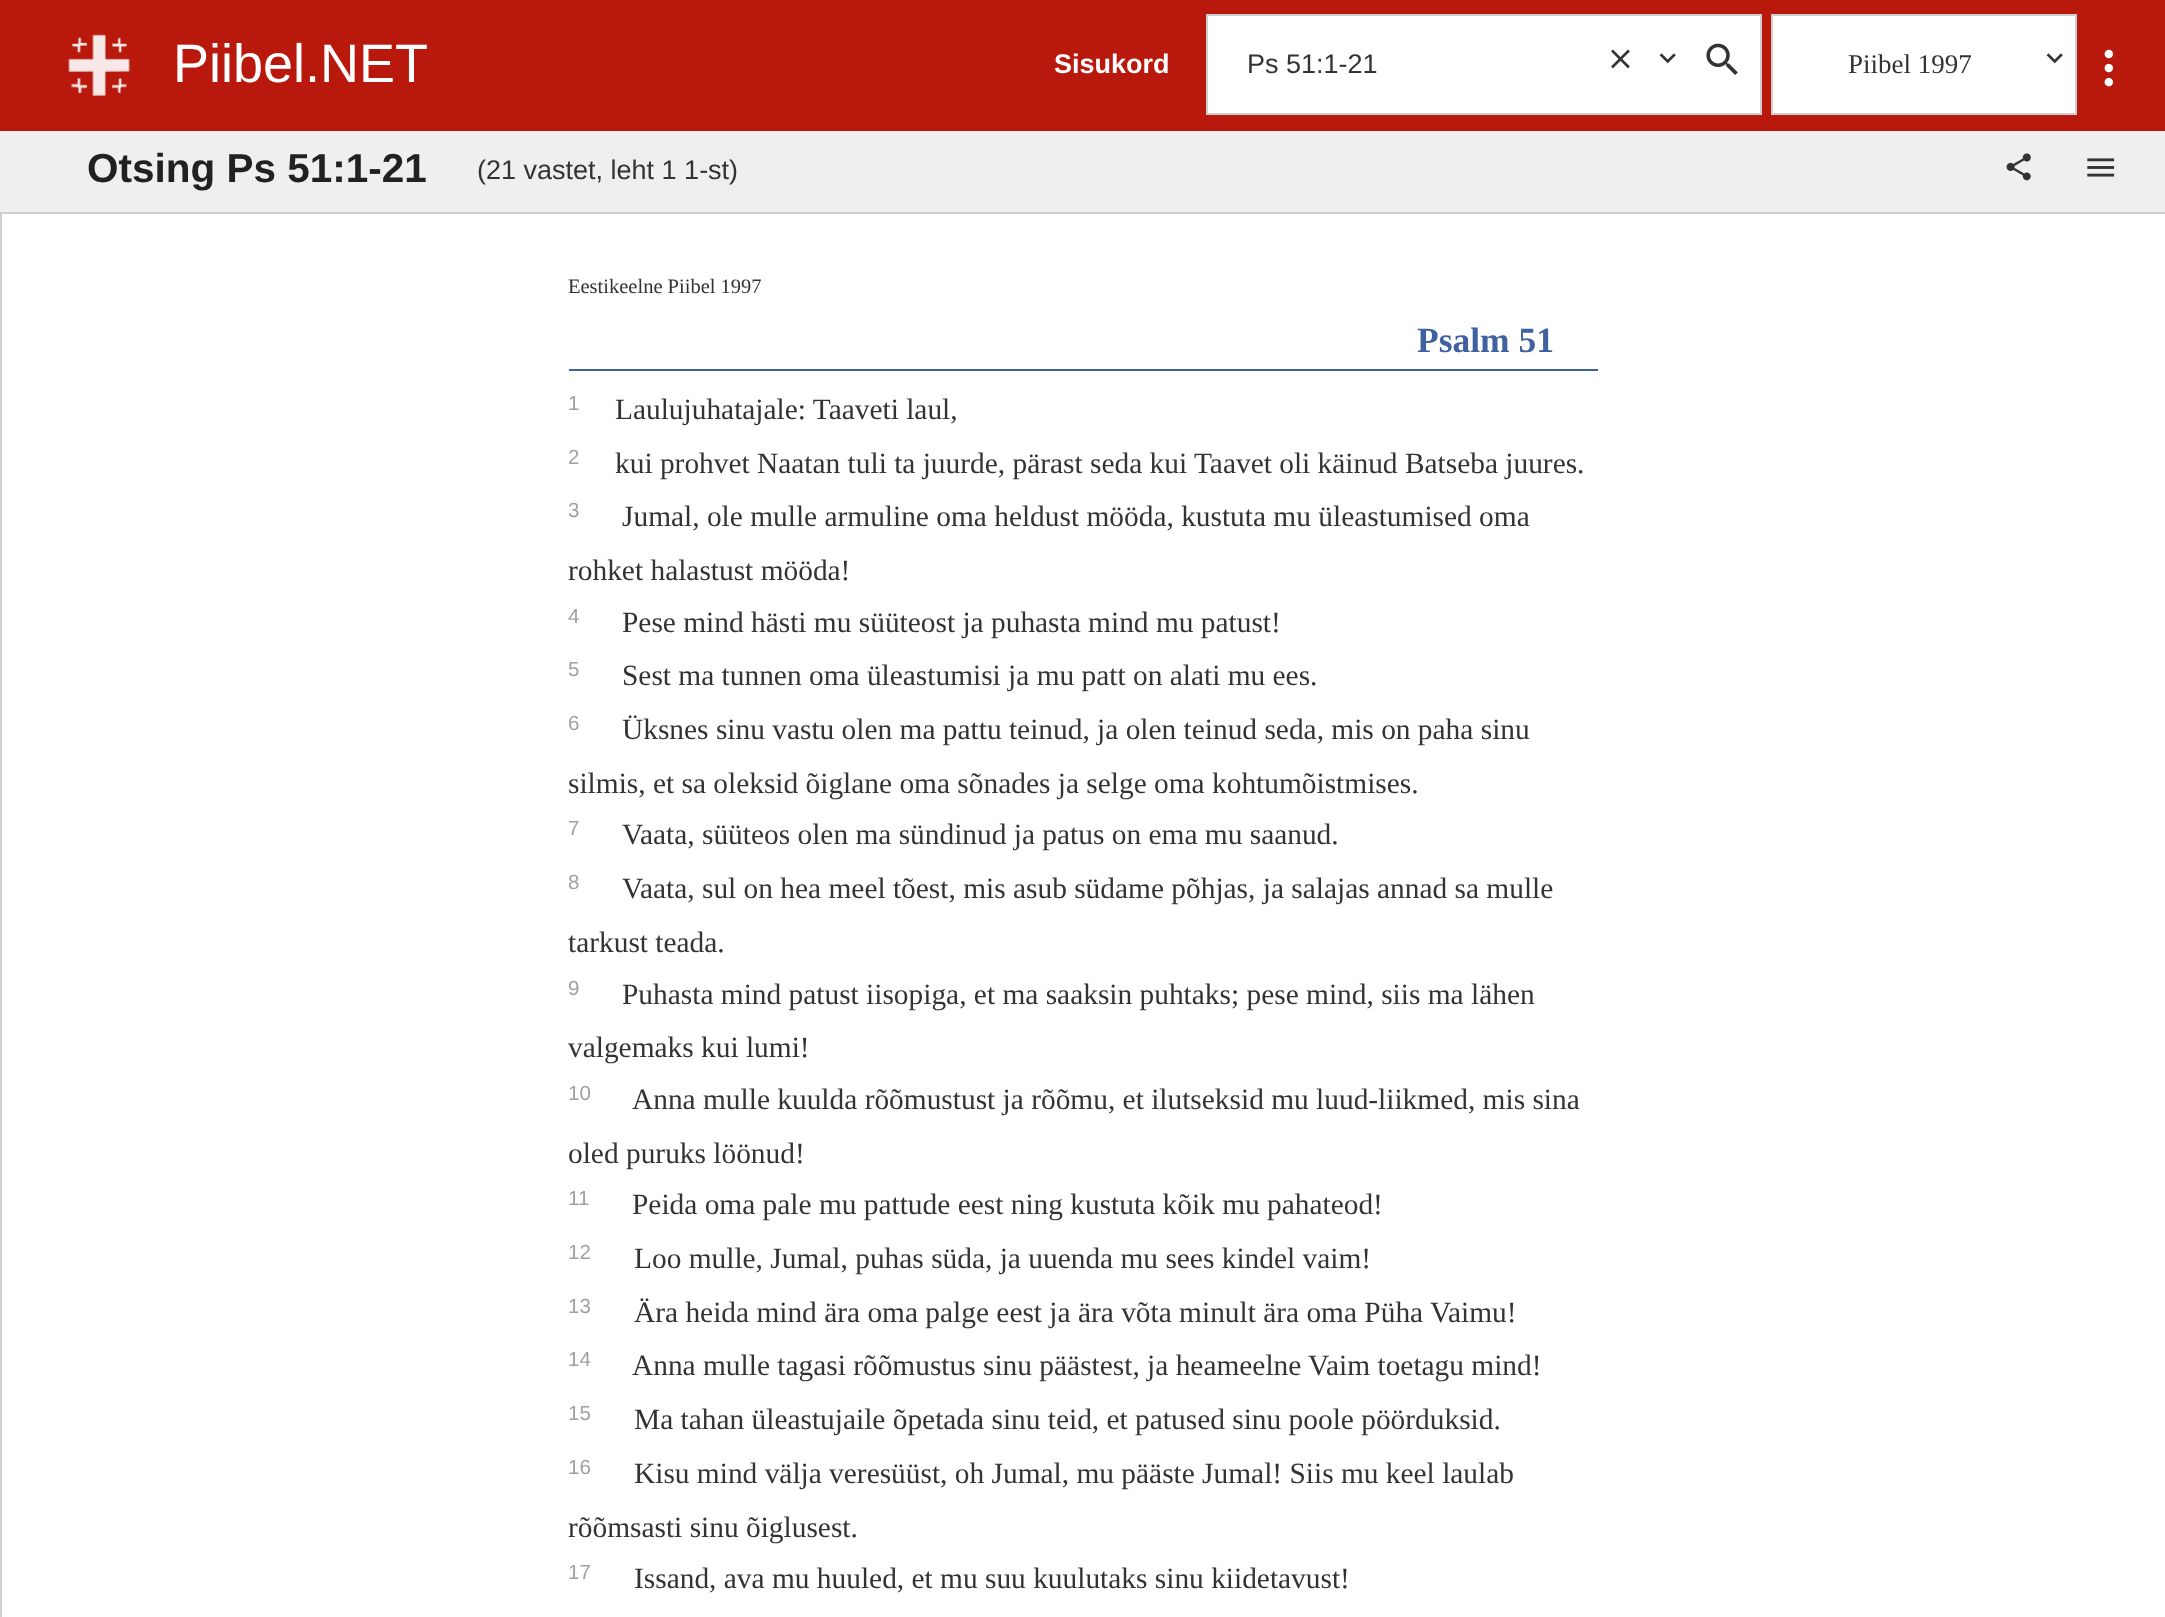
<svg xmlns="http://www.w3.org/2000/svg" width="2165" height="1617">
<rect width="100%" height="100%" fill="#fff"/>
<rect width="2165" height="131" fill="#b9180c"/>
<image x="63" y="29" width="67" height="67" href="media/1.png"/>
<text x="173" y="82" style="font-family:Liberation Sans;font-size:54px;fill:#fff">Piibel.NET</text>
<text x="1054" y="73" style="font-family:Liberation Sans;font-size:27px;font-weight:bold;fill:#fff">Sisukord</text>
<rect x="1207" y="15" width="554" height="99" fill="#fff" stroke="#cecece" stroke-width="2"/>
<text x="1247" y="73" style="font-family:Liberation Sans;font-size:27px;fill:#333">Ps 51:1-21</text>
<image x="1611" y="49" width="19" height="20" href="media/2.png"/>
<image x="1659" y="53" width="17" height="11" href="media/3.png"/>
<image x="1706" y="43" width="32" height="32" href="media/4.png"/>
<rect x="1772" y="15" width="304" height="99" fill="#fff" stroke="#cecece" stroke-width="2"/>
<text x="1848" y="73" style="font-family:Liberation Serif;font-size:27px;fill:#333">Piibel 1997</text>
<image x="2046" y="53" width="17" height="11" href="media/3.png"/>
<image x="2104" y="49" width="9" height="38" href="media/5.png"/>
<rect y="131" width="2165" height="81" fill="#efefef"/>
<rect y="212" width="2165" height="2" fill="#cecece"/>
<text x="87" y="182" style="font-family:Liberation Sans;font-size:40.5px;font-weight:bold;fill:#222020">Otsing Ps 51:1-21</text>
<text x="477" y="179" style="font-family:Liberation Sans;font-size:27px;fill:#333">(21 vastet, leht 1 1-st)</text>
<image x="2006" y="153" width="25" height="28" href="media/6.png"/>
<image x="2087" y="158" width="28" height="19" href="media/7.png"/>
<rect y="214" width="2" height="1403" fill="#cecece"/>
<text x="568" y="293" style="font-family:Liberation Serif;font-size:20.5px;fill:#333">Eestikeelne Piibel 1997</text>
<rect x="569" y="369" width="1029" height="2" fill="#3f61a0"/>
<text x="1417" y="352" style="font-family:Liberation Serif;font-size:35.5px;font-weight:bold;fill:#3f61a0">Psalm 51</text>
<text x="568" y="410" style="font-family:Liberation Sans;font-size:20.5px;fill:#a0a0a0">1</text>
<text x="615" y="419" style="font-family:Liberation Serif;font-size:29.4px;fill:#333">Laulujuhatajale: Taaveti laul,</text>
<text x="568" y="464" style="font-family:Liberation Sans;font-size:20.5px;fill:#a0a0a0">2</text>
<text x="615" y="473" style="font-family:Liberation Serif;font-size:29.4px;fill:#333">kui prohvet Naatan tuli ta juurde, pärast seda kui Taavet oli käinud Batseba juures.</text>
<text x="568" y="517" style="font-family:Liberation Sans;font-size:20.5px;fill:#a0a0a0">3</text>
<text x="622" y="526" style="font-family:Liberation Serif;font-size:29.4px;fill:#333">Jumal, ole mulle armuline oma heldust mööda, kustuta mu üleastumised oma</text>
<text x="568" y="580" style="font-family:Liberation Serif;font-size:29.4px;fill:#333">rohket halastust mööda!</text>
<text x="568" y="623" style="font-family:Liberation Sans;font-size:20.5px;fill:#a0a0a0">4</text>
<text x="622" y="632" style="font-family:Liberation Serif;font-size:29.4px;fill:#333">Pese mind hästi mu süüteost ja puhasta mind mu patust!</text>
<text x="568" y="676" style="font-family:Liberation Sans;font-size:20.5px;fill:#a0a0a0">5</text>
<text x="622" y="685" style="font-family:Liberation Serif;font-size:29.4px;fill:#333">Sest ma tunnen oma üleastumisi ja mu patt on alati mu ees.</text>
<text x="568" y="730" style="font-family:Liberation Sans;font-size:20.5px;fill:#a0a0a0">6</text>
<text x="622" y="739" style="font-family:Liberation Serif;font-size:29.4px;fill:#333">Üksnes sinu vastu olen ma pattu teinud, ja olen teinud seda, mis on paha sinu</text>
<text x="568" y="793" style="font-family:Liberation Serif;font-size:29.4px;fill:#333">silmis, et sa oleksid õiglane oma sõnades ja selge oma kohtumõistmises.</text>
<text x="568" y="835" style="font-family:Liberation Sans;font-size:20.5px;fill:#a0a0a0">7</text>
<text x="622" y="844" style="font-family:Liberation Serif;font-size:29.4px;fill:#333">Vaata, süüteos olen ma sündinud ja patus on ema mu saanud.</text>
<text x="568" y="889" style="font-family:Liberation Sans;font-size:20.5px;fill:#a0a0a0">8</text>
<text x="622" y="898" style="font-family:Liberation Serif;font-size:29.4px;fill:#333">Vaata, sul on hea meel tõest, mis asub südame põhjas, ja salajas annad sa mulle</text>
<text x="568" y="952" style="font-family:Liberation Serif;font-size:29.4px;fill:#333">tarkust teada.</text>
<text x="568" y="995" style="font-family:Liberation Sans;font-size:20.5px;fill:#a0a0a0">9</text>
<text x="622" y="1004" style="font-family:Liberation Serif;font-size:29.4px;fill:#333">Puhasta mind patust iisopiga, et ma saaksin puhtaks; pese mind, siis ma lähen</text>
<text x="568" y="1057" style="font-family:Liberation Serif;font-size:29.4px;fill:#333">valgemaks kui lumi!</text>
<text x="568" y="1100" style="font-family:Liberation Sans;font-size:20.5px;fill:#a0a0a0">10</text>
<text x="632" y="1109" style="font-family:Liberation Serif;font-size:29.4px;fill:#333">Anna mulle kuulda rõõmustust ja rõõmu, et ilutseksid mu luud-liikmed, mis sina</text>
<text x="568" y="1163" style="font-family:Liberation Serif;font-size:29.4px;fill:#333">oled puruks löönud!</text>
<text x="568" y="1205" style="font-family:Liberation Sans;font-size:20.5px;fill:#a0a0a0">11</text>
<text x="632" y="1214" style="font-family:Liberation Serif;font-size:29.4px;fill:#333">Peida oma pale mu pattude eest ning kustuta kõik mu pahateod!</text>
<text x="568" y="1259" style="font-family:Liberation Sans;font-size:20.5px;fill:#a0a0a0">12</text>
<text x="634" y="1268" style="font-family:Liberation Serif;font-size:29.4px;fill:#333">Loo mulle, Jumal, puhas süda, ja uuenda mu sees kindel vaim!</text>
<text x="568" y="1313" style="font-family:Liberation Sans;font-size:20.5px;fill:#a0a0a0">13</text>
<text x="634" y="1322" style="font-family:Liberation Serif;font-size:29.4px;fill:#333">Ära heida mind ära oma palge eest ja ära võta minult ära oma Püha Vaimu!</text>
<text x="568" y="1366" style="font-family:Liberation Sans;font-size:20.5px;fill:#a0a0a0">14</text>
<text x="632" y="1375" style="font-family:Liberation Serif;font-size:29.4px;fill:#333">Anna mulle tagasi rõõmustus sinu päästest, ja heameelne Vaim toetagu mind!</text>
<text x="568" y="1420" style="font-family:Liberation Sans;font-size:20.5px;fill:#a0a0a0">15</text>
<text x="634" y="1429" style="font-family:Liberation Serif;font-size:29.4px;fill:#333">Ma tahan üleastujaile õpetada sinu teid, et patused sinu poole pöörduksid.</text>
<text x="568" y="1474" style="font-family:Liberation Sans;font-size:20.5px;fill:#a0a0a0">16</text>
<text x="634" y="1483" style="font-family:Liberation Serif;font-size:29.4px;fill:#333">Kisu mind välja veresüüst, oh Jumal, mu pääste Jumal! Siis mu keel laulab</text>
<text x="568" y="1537" style="font-family:Liberation Serif;font-size:29.4px;fill:#333">rõõmsasti sinu õiglusest.</text>
<text x="568" y="1579" style="font-family:Liberation Sans;font-size:20.5px;fill:#a0a0a0">17</text>
<text x="634" y="1588" style="font-family:Liberation Serif;font-size:29.4px;fill:#333">Issand, ava mu huuled, et mu suu kuulutaks sinu kiidetavust!</text>
</svg>
